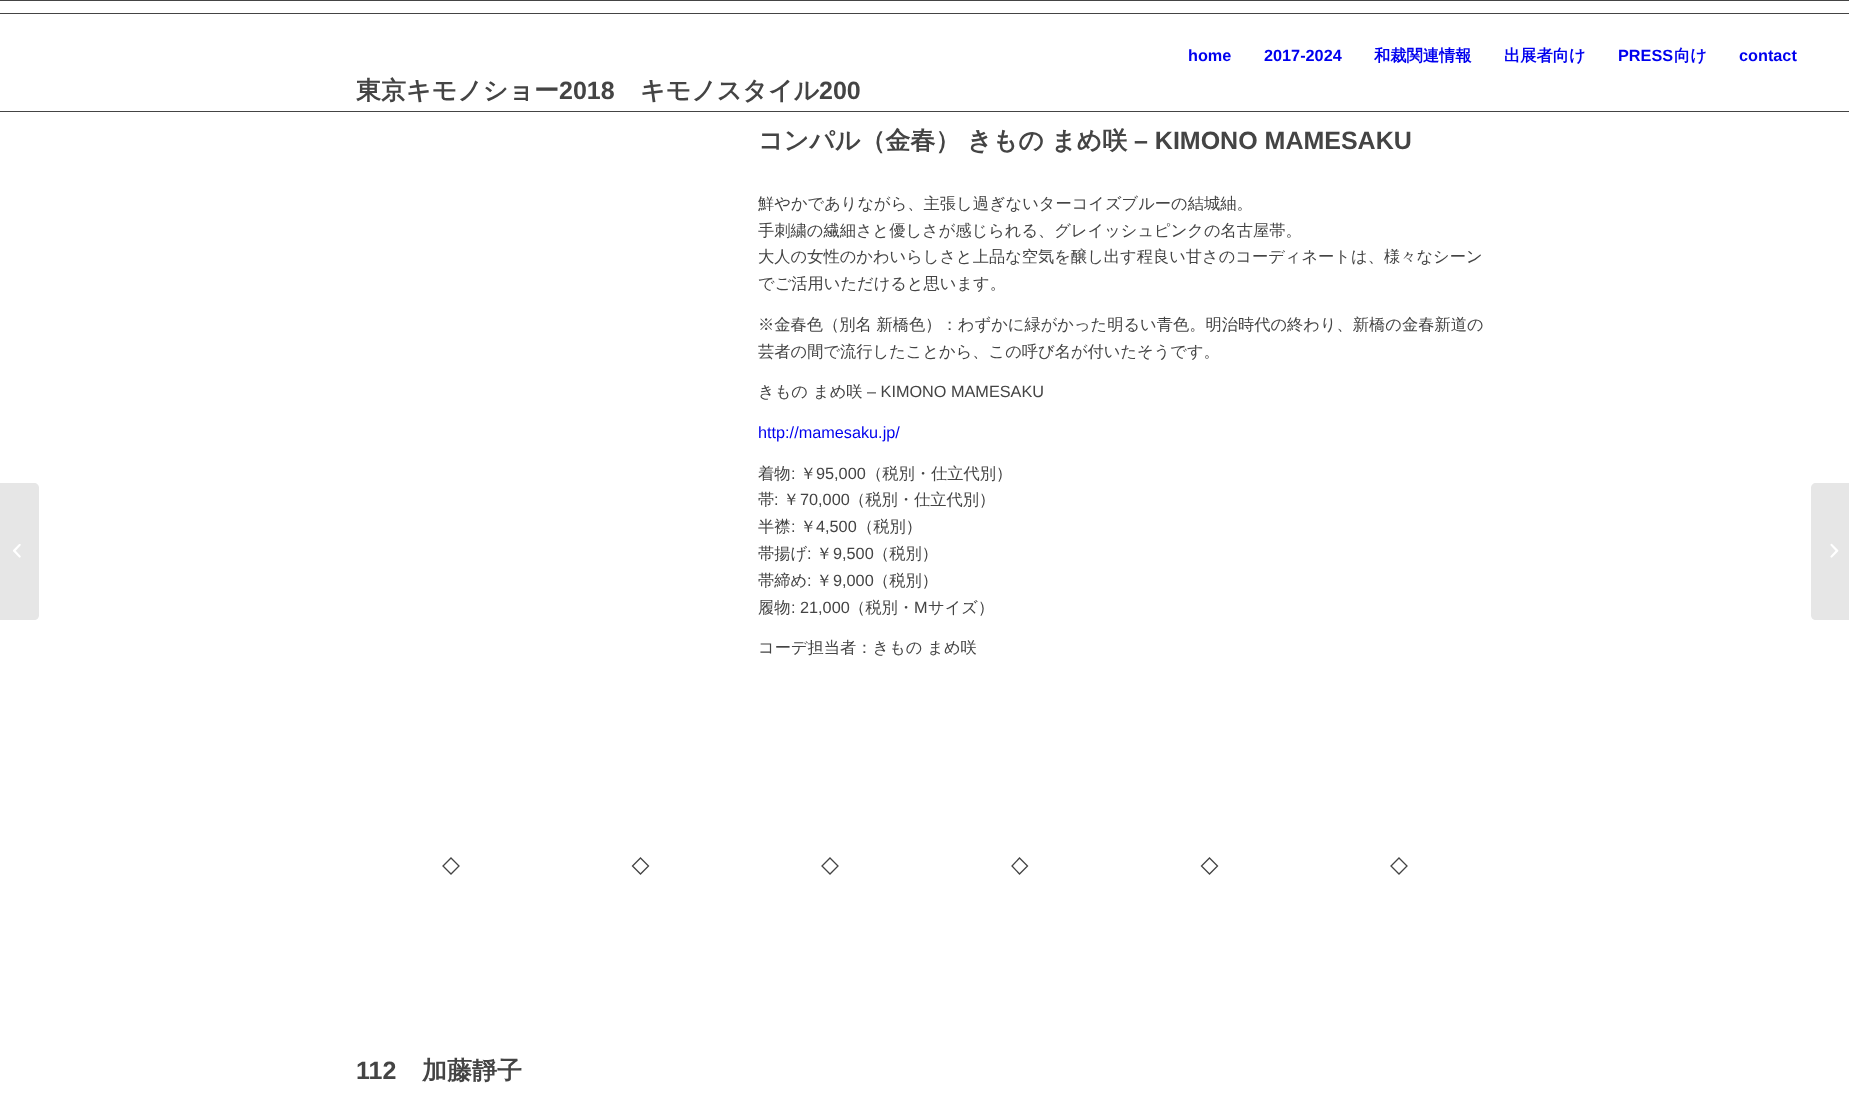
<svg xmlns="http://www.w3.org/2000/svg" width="1849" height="1102">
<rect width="100%" height="100%" fill="#fff"/>
<rect width="1849" height="1" fill="#444"/>
<rect y="111" width="1849" height="1" fill="#444"/>
<text x="1188" y="61" style="font-family:Liberation Sans;font-size:16.25px;font-weight:bold;fill:#00e">home</text>
<text x="1264" y="61" style="font-family:Liberation Sans;font-size:16.25px;font-weight:bold;fill:#00e">2017-2024</text>
<text x="1374" y="61" style="font-family:WenQuanYi Zen Hei;font-size:16.25px;font-weight:bold;fill:#00e">和裁関連情報</text>
<text x="1504" y="61" style="font-family:WenQuanYi Zen Hei;font-size:16.25px;font-weight:bold;fill:#00e">出展者向け</text>
<text x="1618" y="61" style="font-family:Liberation Sans;font-size:16.25px;font-weight:bold;fill:#00e">PRESS</text>
<text x="1674" y="61" style="font-family:WenQuanYi Zen Hei;font-size:16.25px;font-weight:bold;fill:#00e">向け</text>
<text x="1739" y="61" style="font-family:Liberation Sans;font-size:16.25px;font-weight:bold;fill:#00e">contact</text>
<path d="M0 483h34c3 0 5 2 5 5v127c0 3-2 5-5 5h-34z" fill="#e6e6e6"/>
<image x="13" y="544" width="8" height="14" href="media/1.png"/>
<rect y="13" width="1849" height="1" fill="#444"/>
<text x="356" y="99" style="font-family:WenQuanYi Zen Hei;font-size:25px;font-weight:bold;fill:#444">東京キモノショー</text>
<text x="559" y="99" style="font-family:Liberation Sans;font-size:25px;font-weight:bold;fill:#444">2018</text>
<text x="640" y="99" style="font-family:WenQuanYi Zen Hei;font-size:25px;font-weight:bold;fill:#444">キモノスタイル</text>
<text x="819" y="99" style="font-family:Liberation Sans;font-size:25px;font-weight:bold;fill:#444">200</text>
<text x="758" y="149" style="font-family:WenQuanYi Zen Hei;font-size:25px;font-weight:bold;fill:#444">コンパル（金春）</text>
<text x="967" y="149" style="font-family:WenQuanYi Zen Hei;font-size:25px;font-weight:bold;fill:#444">きもの</text>
<text x="1051" y="149" style="font-family:WenQuanYi Zen Hei;font-size:25px;font-weight:bold;fill:#444">まめ咲</text>
<text x="1134" y="149" style="font-family:Liberation Sans;font-size:25px;font-weight:bold;fill:#444">– KIMONO MAMESAKU</text>
<text x="758" y="209" style="font-family:WenQuanYi Zen Hei;font-size:16.25px;font-weight:500;fill:#444">鮮やかでありながら、主張し過ぎないターコイズブルーの結城紬。</text>
<text x="758" y="236" style="font-family:WenQuanYi Zen Hei;font-size:16.25px;font-weight:500;fill:#444">手刺繍の繊細さと優しさが感じられる、グレイッシュピンクの名古屋帯。</text>
<text x="758" y="262" style="font-family:WenQuanYi Zen Hei;font-size:16.25px;font-weight:500;fill:#444">大人の女性のかわいらしさと上品な空気を醸し出す程良い甘さのコーディネートは、様々なシーン</text>
<text x="758" y="289" style="font-family:WenQuanYi Zen Hei;font-size:16.25px;font-weight:500;fill:#444">でご活用いただけると思います。</text>
<text x="758" y="330" style="font-family:WenQuanYi Zen Hei;font-size:16.25px;font-weight:500;fill:#444">※金春色（別名 新橋色）：わずかに緑がかった明るい青色。明治時代の終わり、新橋の金春新道の</text>
<text x="758" y="357" style="font-family:WenQuanYi Zen Hei;font-size:16.25px;font-weight:500;fill:#444">芸者の間で流行したことから、この呼び名が付いたそうです。</text>
<text x="758" y="397" style="font-family:WenQuanYi Zen Hei;font-size:16.25px;font-weight:500;fill:#444">きもの</text>
<text x="813" y="397" style="font-family:WenQuanYi Zen Hei;font-size:16.25px;font-weight:500;fill:#444">まめ咲</text>
<text x="867" y="397" style="font-family:Liberation Sans;font-size:16.25px;fill:#444">– KIMONO MAMESAKU</text>
<text x="758" y="438" style="font-family:Liberation Sans;font-size:16.25px;fill:#00e">http://mamesaku.jp/</text>
<text x="758" y="479" style="font-family:WenQuanYi Zen Hei;font-size:16.25px;font-weight:500;fill:#444">着物</text>
<text x="791" y="479" style="font-family:Liberation Sans;font-size:16.25px;fill:#444">:</text>
<text x="800" y="479" style="font-family:WenQuanYi Zen Hei;font-size:16.25px;font-weight:500;fill:#444">￥</text>
<text x="816" y="479" style="font-family:Liberation Sans;font-size:16.25px;fill:#444">95,000</text>
<text x="866" y="479" style="font-family:WenQuanYi Zen Hei;font-size:16.25px;font-weight:500;fill:#444">（税別・仕立代別）</text>
<text x="758" y="505" style="font-family:WenQuanYi Zen Hei;font-size:16.25px;font-weight:500;fill:#444">帯</text>
<text x="774" y="505" style="font-family:Liberation Sans;font-size:16.25px;fill:#444">:</text>
<text x="783" y="505" style="font-family:WenQuanYi Zen Hei;font-size:16.25px;font-weight:500;fill:#444">￥</text>
<text x="800" y="505" style="font-family:Liberation Sans;font-size:16.25px;fill:#444">70,000</text>
<text x="849" y="505" style="font-family:WenQuanYi Zen Hei;font-size:16.25px;font-weight:500;fill:#444">（税別・仕立代別）</text>
<text x="758" y="532" style="font-family:WenQuanYi Zen Hei;font-size:16.25px;font-weight:500;fill:#444">半襟</text>
<text x="791" y="532" style="font-family:Liberation Sans;font-size:16.25px;fill:#444">:</text>
<text x="800" y="532" style="font-family:WenQuanYi Zen Hei;font-size:16.25px;font-weight:500;fill:#444">￥</text>
<text x="816" y="532" style="font-family:Liberation Sans;font-size:16.25px;fill:#444">4,500</text>
<text x="857" y="532" style="font-family:WenQuanYi Zen Hei;font-size:16.25px;font-weight:500;fill:#444">（税別）</text>
<text x="758" y="559" style="font-family:WenQuanYi Zen Hei;font-size:16.25px;font-weight:500;fill:#444">帯揚げ</text>
<text x="807" y="559" style="font-family:Liberation Sans;font-size:16.25px;fill:#444">:</text>
<text x="816" y="559" style="font-family:WenQuanYi Zen Hei;font-size:16.25px;font-weight:500;fill:#444">￥</text>
<text x="833" y="559" style="font-family:Liberation Sans;font-size:16.25px;fill:#444">9,500</text>
<text x="873" y="559" style="font-family:WenQuanYi Zen Hei;font-size:16.25px;font-weight:500;fill:#444">（税別）</text>
<text x="758" y="586" style="font-family:WenQuanYi Zen Hei;font-size:16.25px;font-weight:500;fill:#444">帯締め</text>
<text x="807" y="586" style="font-family:Liberation Sans;font-size:16.25px;fill:#444">:</text>
<text x="816" y="586" style="font-family:WenQuanYi Zen Hei;font-size:16.25px;font-weight:500;fill:#444">￥</text>
<text x="833" y="586" style="font-family:Liberation Sans;font-size:16.25px;fill:#444">9,000</text>
<text x="873" y="586" style="font-family:WenQuanYi Zen Hei;font-size:16.25px;font-weight:500;fill:#444">（税別）</text>
<text x="758" y="613" style="font-family:WenQuanYi Zen Hei;font-size:16.25px;font-weight:500;fill:#444">履物</text>
<text x="791" y="613" style="font-family:Liberation Sans;font-size:16.25px;fill:#444">: 21,000</text>
<text x="849" y="613" style="font-family:WenQuanYi Zen Hei;font-size:16.25px;font-weight:500;fill:#444">（税別・</text>
<text x="914" y="613" style="font-family:Liberation Sans;font-size:16.25px;fill:#444">M</text>
<text x="928" y="613" style="font-family:WenQuanYi Zen Hei;font-size:16.25px;font-weight:500;fill:#444">サイズ）</text>
<text x="758" y="653" style="font-family:WenQuanYi Zen Hei;font-size:16.25px;font-weight:500;fill:#444">コーデ担当者：きもの まめ咲</text>
<path d="M640.5 858l8 8l-8 8l-8-8z" fill="none" stroke="#444" stroke-width="1.3"/>
<path d="M830 858l8 8l-8 8l-8-8z" fill="none" stroke="#444" stroke-width="1.3"/>
<path d="M1019.5 858l8 8l-8 8l-7.5-8z" fill="none" stroke="#444" stroke-width="1.3"/>
<path d="M1209.5 858l8 8l-8 8l-8-8z" fill="none" stroke="#444" stroke-width="1.3"/>
<path d="M1399 858l8 8l-8 8l-8-8z" fill="none" stroke="#444" stroke-width="1.3"/>
<path d="M451 858l8 8l-8 8l-8-8z" fill="none" stroke="#444" stroke-width="1.3"/>
<text x="356" y="1079" style="font-family:Liberation Sans;font-size:25px;font-weight:bold;fill:#444">112</text>
<text x="422" y="1079" style="font-family:WenQuanYi Zen Hei;font-size:25px;font-weight:bold;fill:#444">加藤靜子</text>
<path d="M1816 483h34v137h-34c-3 0-5-2-5-5v-127c0-3 2-5 5-5z" fill="#e6e6e6"/>
<image x="1830" y="543" width="9" height="15" href="media/2.png"/>
</svg>
